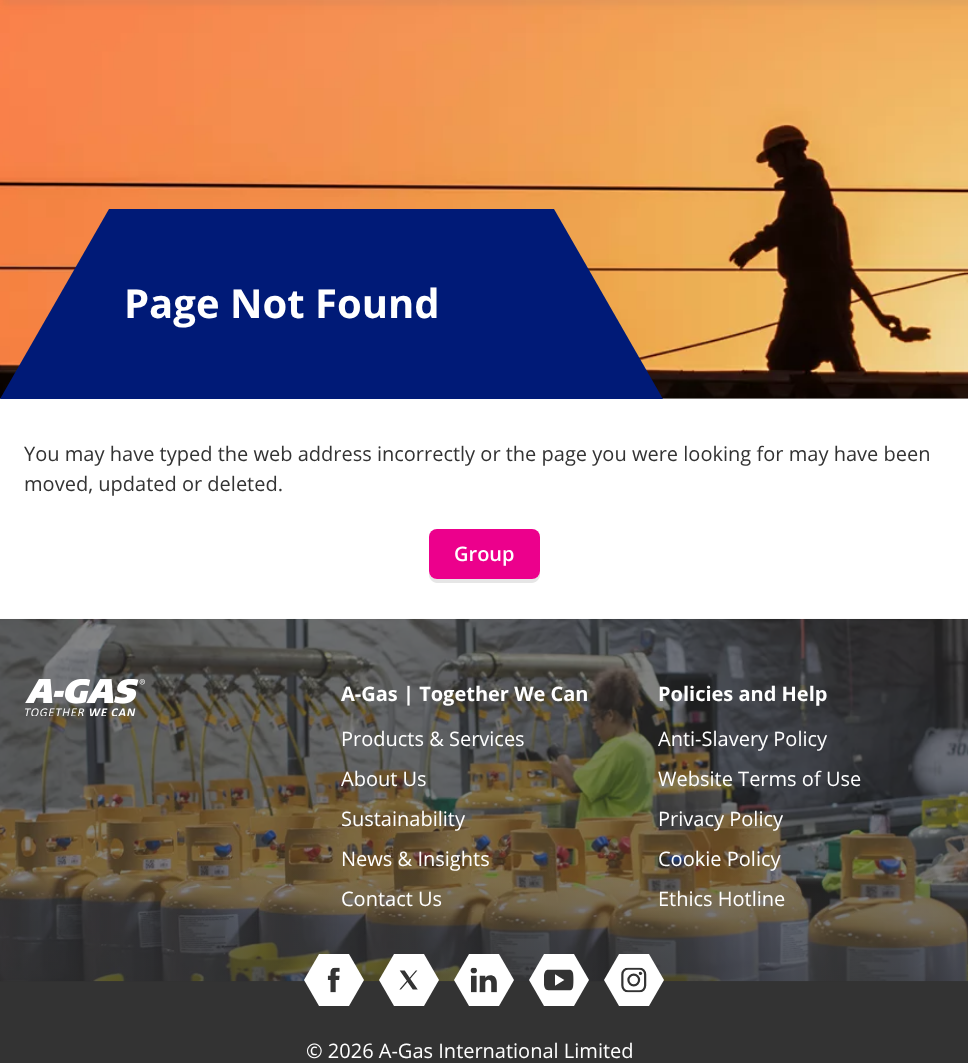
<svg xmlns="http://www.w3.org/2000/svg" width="968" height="1063">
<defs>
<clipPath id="clip1"><rect y="209" width="775" height="190"/></clipPath>
<linearGradient id="g1" gradientUnits="userSpaceOnUse" x1="484" y1="861" x2="484" y2="981"><stop offset="0" stop-color="#333" stop-opacity="0"/><stop offset="1" stop-color="#333" stop-opacity="0.4"/></linearGradient>
</defs>
<rect width="100%" height="100%" fill="#fff"/>
<rect y="398" width="968" height="1" fill="#f7f7f7"/>
<image x="0" y="0" width="968" height="399" href="media/1.png"/>
<rect x="3" y="-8" width="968" height="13" fill="#8076761a" filter="blur(2.5px)"/>
<g clip-path="url(#clip1)">
<path d="M554 209h-445l-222 387l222 387h445l222-387z" fill="#001a77"/>
</g>
<text x="124" y="318" style="font-family:Open Sans;font-size:40px;font-weight:bold;fill:#fff">Page Not Found</text>
<text x="24" y="461" style="font-family:Open Sans;font-size:20px;fill:#333">You may have typed the web address incorrectly or the page you were looking for may have been</text>
<text x="24" y="491" style="font-family:Open Sans;font-size:20px;fill:#333">moved, updated or deleted.</text>
<path d="M429 573v2c0 4 4 8 8 8h95c4 0 8-4 8-8v-4c0 4-3 8-8 8h-96c-3 0-6-3-7-6z" fill="#e6e6e6"/>
<rect x="429" y="529" width="111" height="50" rx="8" fill="#ec008c"/>
<text x="454" y="561" style="font-family:Open Sans;font-size:20px;font-weight:600;fill:#fff">Group</text>
<rect y="619" width="968" height="444" fill="#333"/>
<image x="0" y="618" width="968" height="364" href="media/2.png"/>
<rect y="869" width="968" height="112" fill="url(#g1)"/>
<image x="25" y="679" width="120" height="37" href="media/3.png"/>
<text x="341" y="701" style="font-family:Open Sans;font-size:20px;font-weight:bold;fill:#fff">A-Gas | Together We Can</text>
<text x="341" y="746" style="font-family:Open Sans;font-size:20px;fill:#fff">Products &amp; Services</text>
<text x="341" y="786" style="font-family:Open Sans;font-size:20px;fill:#fff">About Us</text>
<text x="341" y="826" style="font-family:Open Sans;font-size:20px;fill:#fff">Sustainability</text>
<text x="341" y="866" style="font-family:Open Sans;font-size:20px;fill:#fff">News &amp; Insights</text>
<text x="341" y="906" style="font-family:Open Sans;font-size:20px;fill:#fff">Contact Us</text>
<text x="658" y="701" style="font-family:Open Sans;font-size:20px;font-weight:bold;fill:#fff">Policies and Help</text>
<text x="658" y="746" style="font-family:Open Sans;font-size:20px;fill:#fff">Anti-Slavery Policy</text>
<text x="658" y="786" style="font-family:Open Sans;font-size:20px;fill:#fff">Website Terms of Use</text>
<text x="658" y="826" style="font-family:Open Sans;font-size:20px;fill:#fff">Privacy Policy</text>
<text x="658" y="866" style="font-family:Open Sans;font-size:20px;fill:#fff">Cookie Policy</text>
<text x="658" y="906" style="font-family:Open Sans;font-size:20px;fill:#fff">Ethics Hotline</text>
<path d="M349 954h-30l-15 26l15 26h30l15-26z" fill="#fff"/>
<image x="327" y="967" width="13" height="26" href="media/4.png"/>
<path d="M424 954h-30l-15 26l15 26h30l15-26z" fill="#fff"/>
<image x="399" y="970" width="19" height="20" href="media/5.png"/>
<path d="M499 954h-30l-15 26l15 26h30l15-26z" fill="#fff"/>
<image x="470" y="967" width="27" height="26" href="media/6.png"/>
<path d="M574 954h-30l-15 26l15 26h30l15-26z" fill="#fff"/>
<image x="544" y="969" width="30" height="22" href="media/7.png"/>
<path d="M649 954h-30l-15 26l15 26h30l15-26z" fill="#fff"/>
<image x="621" y="967" width="26" height="26" href="media/8.png"/>
<text x="306" y="1058" style="font-family:Open Sans;font-size:20px;fill:#fff">© 2026 A-Gas International Limited</text>
</svg>
